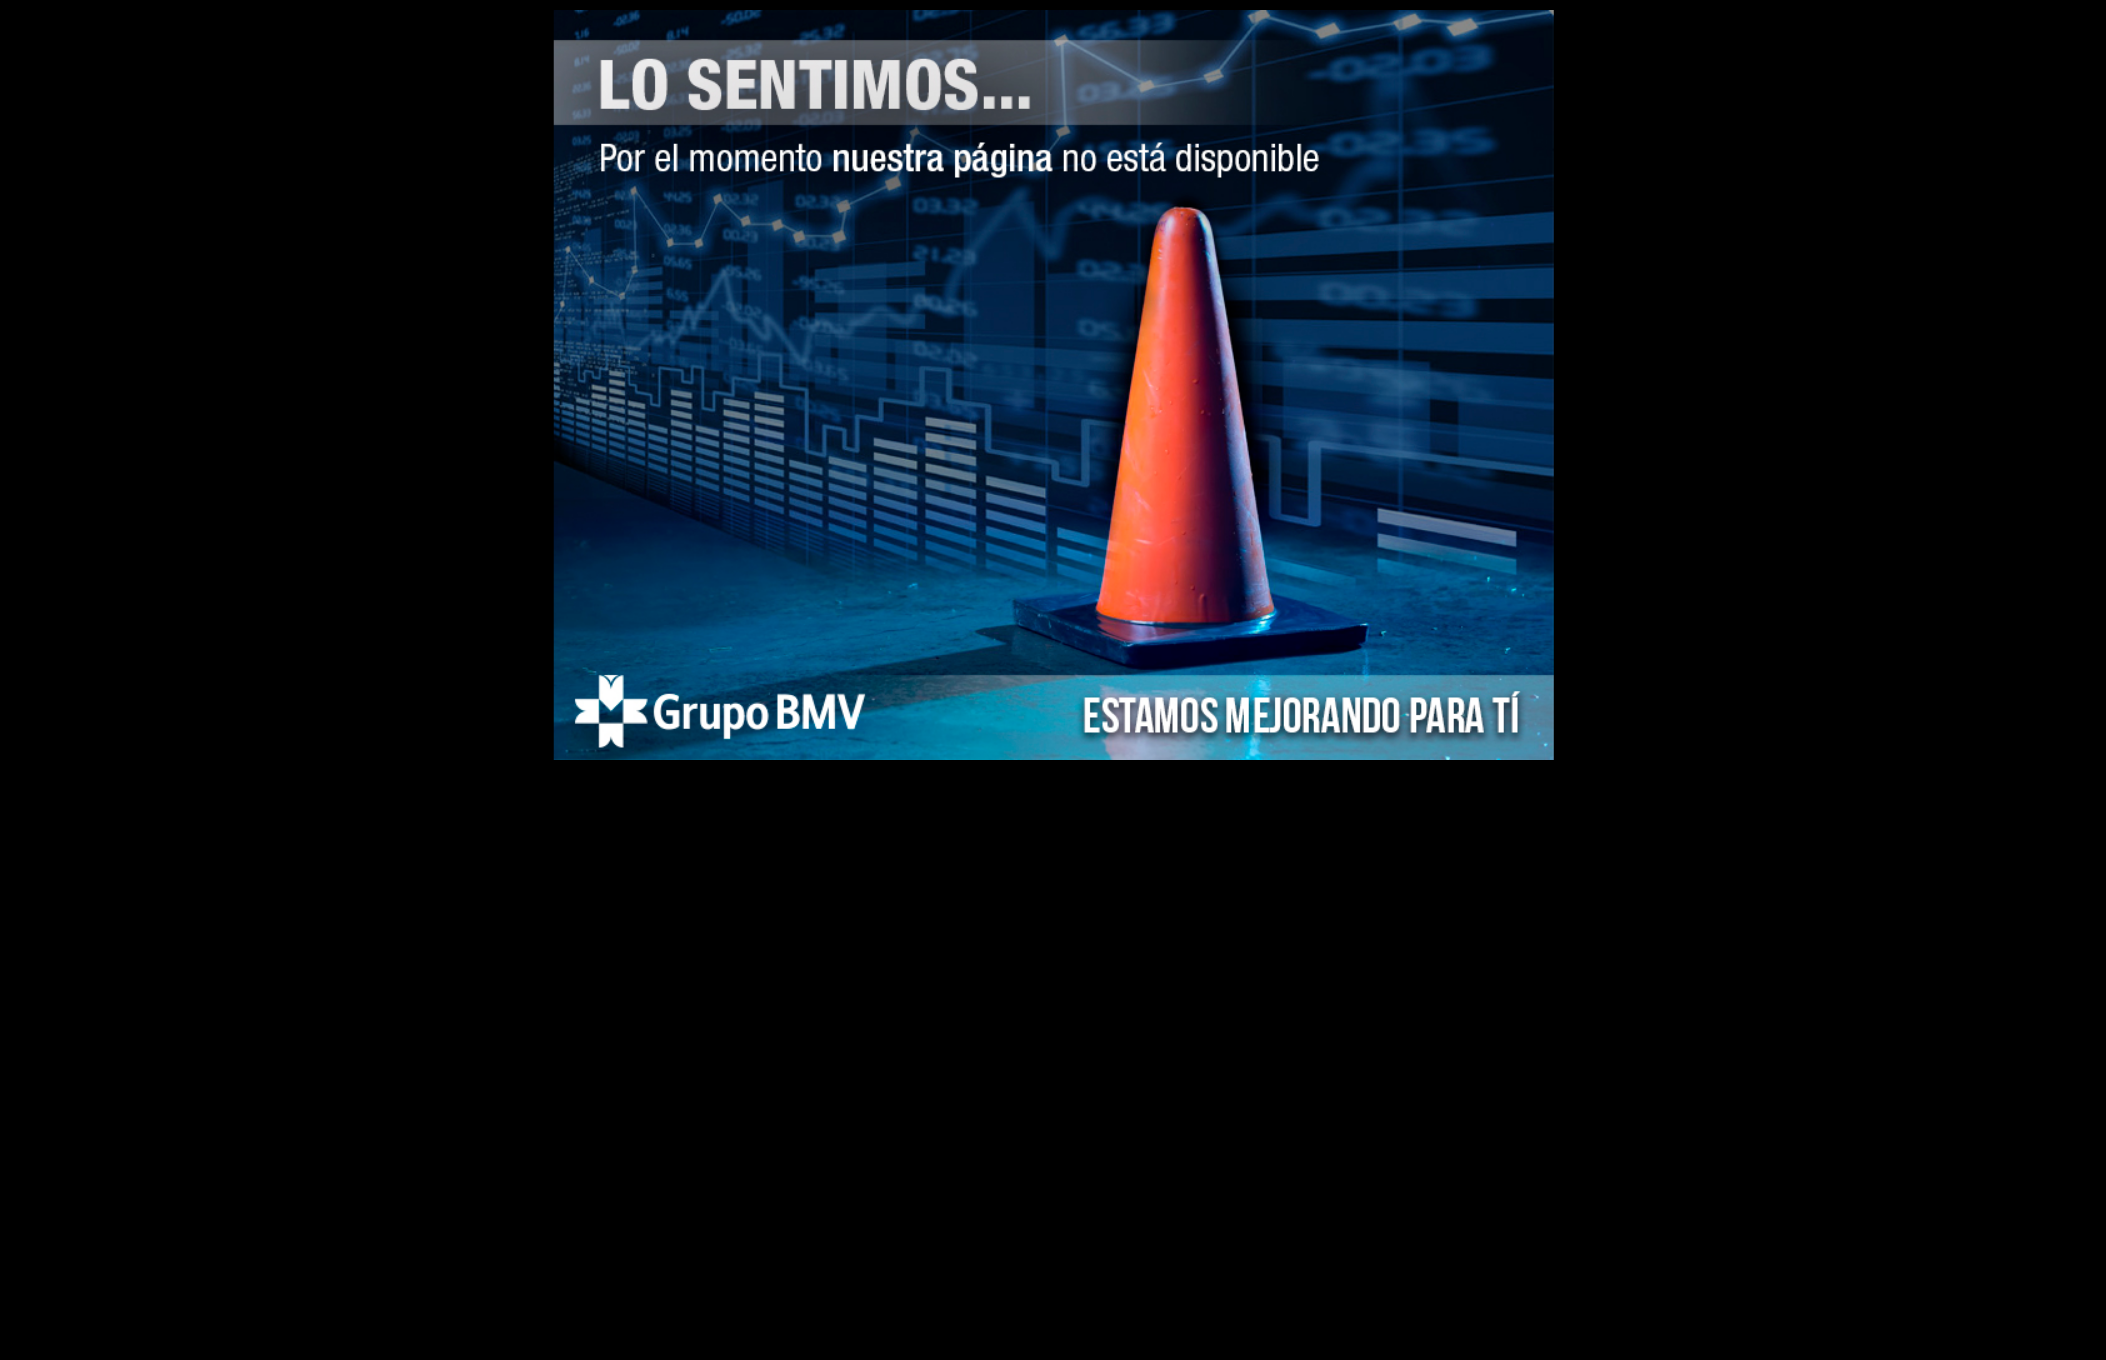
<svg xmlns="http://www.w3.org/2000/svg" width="2106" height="1360">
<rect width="100%" height="100%" fill="#000"/>
<image x="553" y="10" width="1001" height="750" href="media/1.png"/>
</svg>
